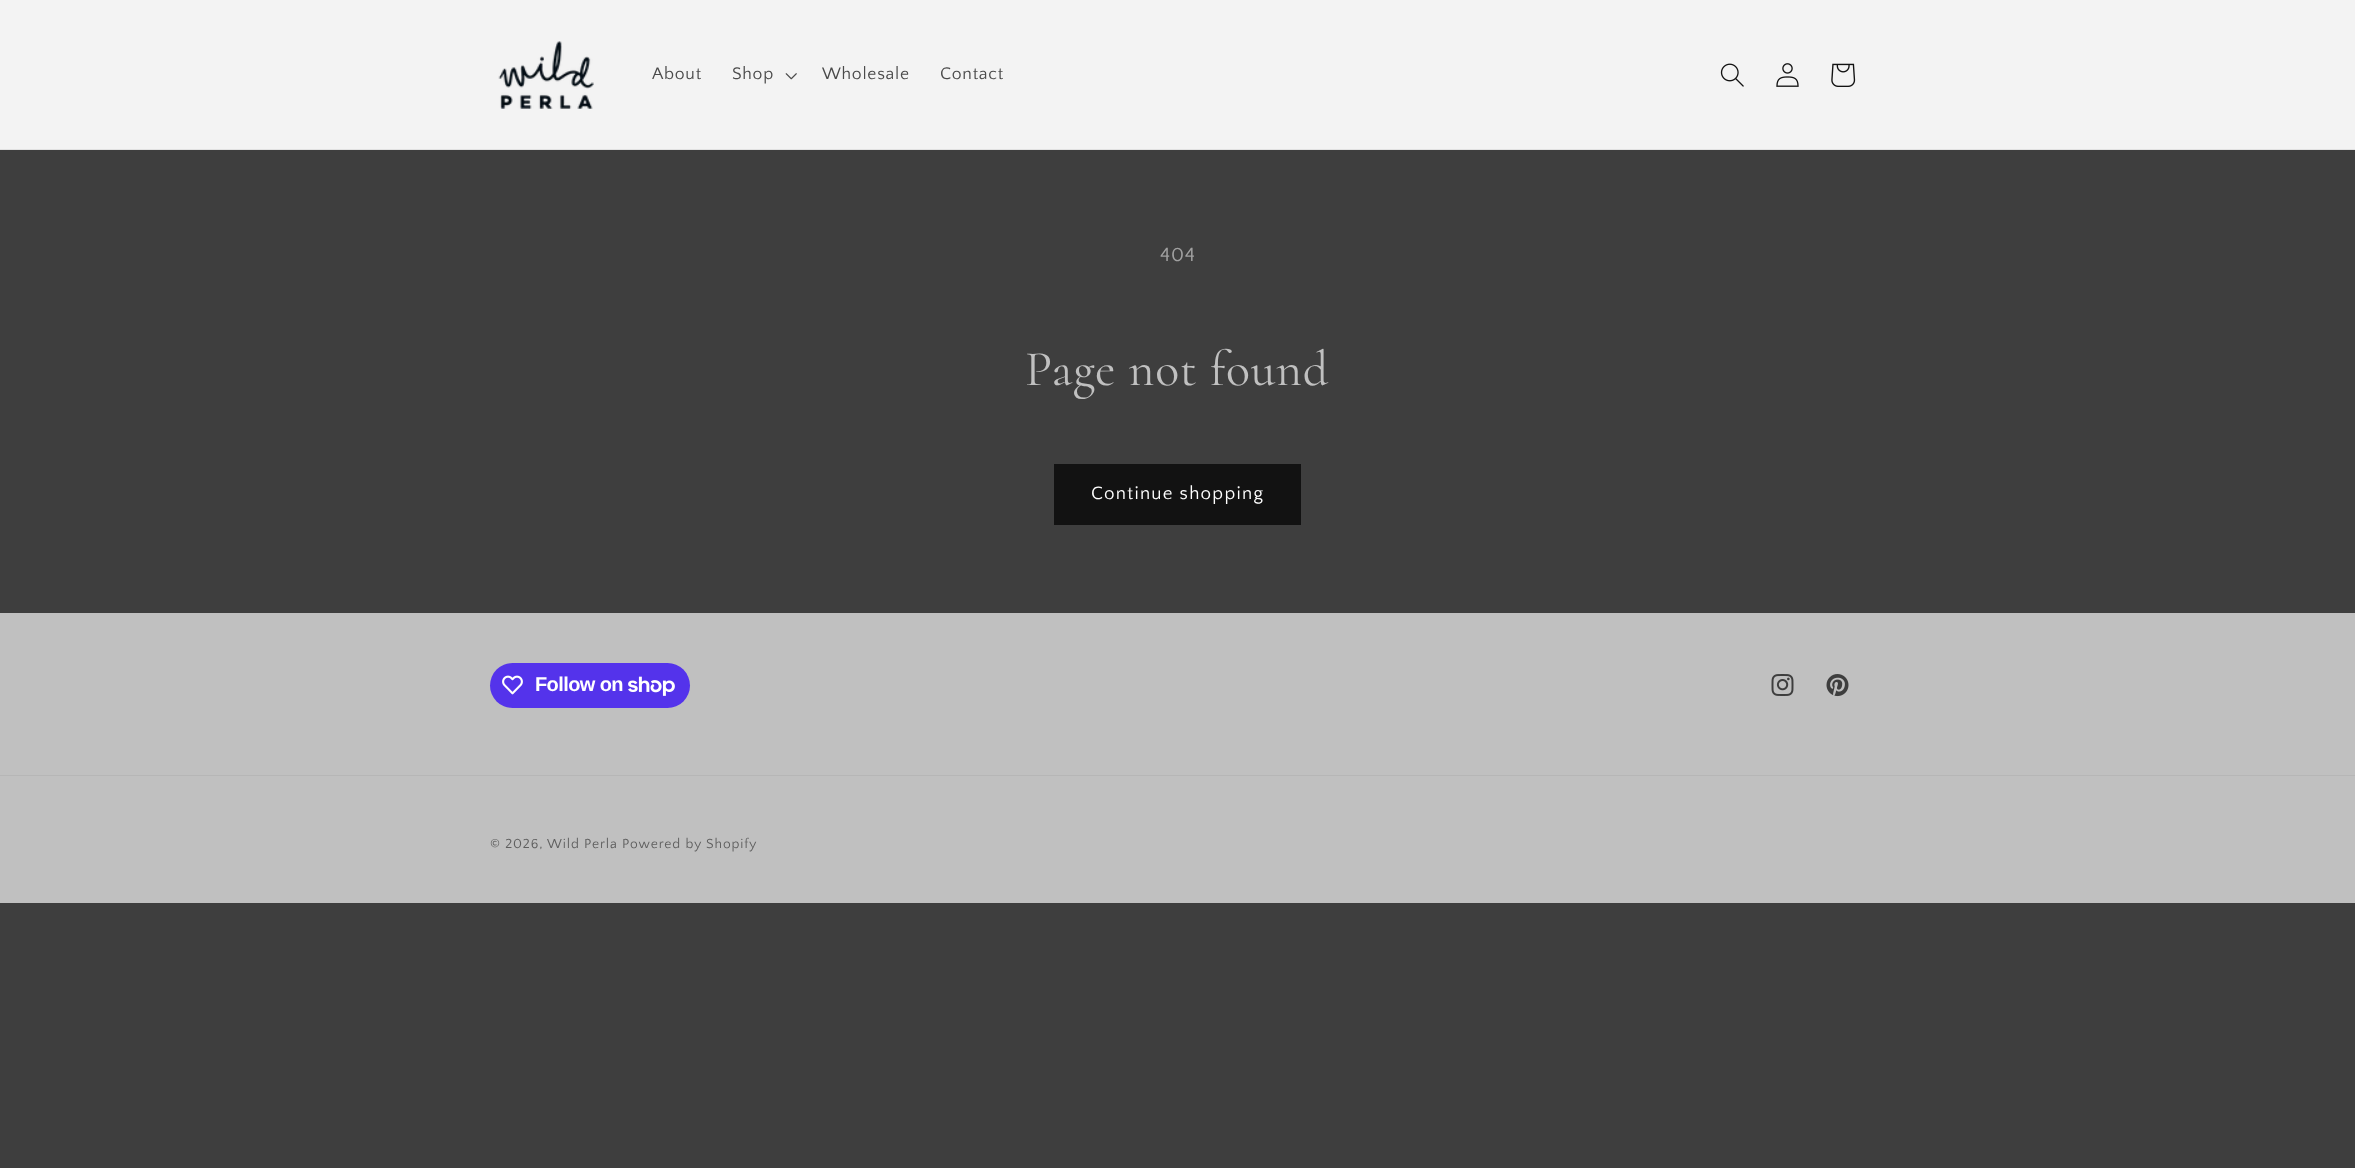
<svg xmlns="http://www.w3.org/2000/svg" width="2355" height="1168">
<rect width="100%" height="100%" fill="#3e3e3e"/>
<rect width="2355" height="149" fill="#f3f3f3"/>
<rect y="149" width="2355" height="1" fill="#e1e1e1"/>
<image x="498" y="41" width="96" height="68" href="media/1.png"/>
<text x="652" y="79" style="font-family:Quattrocento Sans;font-size:17.5px;letter-spacing:0.75px;fill:#4a4a4a">About</text>
<text x="732" y="79" style="font-family:Quattrocento Sans;font-size:17.5px;letter-spacing:0.75px;fill:#4a4a4a">Shop</text>
<image x="785" y="73" width="12" height="7" href="media/2.png"/>
<text x="822" y="79" style="font-family:Quattrocento Sans;font-size:17.5px;letter-spacing:0.75px;fill:#4a4a4a">Wholesale</text>
<text x="940" y="79" style="font-family:Quattrocento Sans;font-size:17.5px;letter-spacing:0.75px;fill:#4a4a4a">Contact</text>
<image x="1720" y="63" width="24" height="24" href="media/3.png"/>
<image x="1776" y="63" width="23" height="24" href="media/4.png"/>
<image x="1831" y="63" width="25" height="24" href="media/5.png"/>
<text x="1160" y="261" style="font-family:Quattrocento Sans;font-size:20px;letter-spacing:0.75px;fill:#a0a0a0">404</text>
<text x="1025" y="385" style="font-family:Cormorant;font-size:50px;letter-spacing:0.75px;fill:#c0c0c0">Page not found</text>
<rect x="1054" y="464" width="247" height="61" fill="#121212"/>
<text x="1091" y="499" style="font-family:Quattrocento Sans;font-size:18.75px;letter-spacing:1.25px;fill:#fff">Continue shopping</text>
<rect y="613" width="2355" height="290" fill="#c0c0c0"/>
<rect x="490" y="663" width="200" height="45" rx="22.5" fill="#5433eb"/>
<image x="502" y="675" width="21" height="20" href="media/6.png"/>
<text x="535" y="691" style="font-family:Liberation Sans;font-size:20px;font-weight:bold;letter-spacing:-0.6px;fill:#fff">Follow on</text>
<image x="628" y="676" width="47" height="20" href="media/7.png"/>
<image x="1771" y="674" width="23" height="22" href="media/8.png"/>
<image x="1826" y="674" width="23" height="23" href="media/9.png"/>
<rect y="775" width="2355" height="1" fill="#b6b6b6"/>
<text x="490" y="848" style="font-family:Quattrocento Sans;font-size:13.75px;letter-spacing:0.9px;fill:#5f5f5f">© 2026,</text>
<text x="547" y="848" style="font-family:Quattrocento Sans;font-size:13.75px;letter-spacing:0.9px;fill:#5f5f5f">Wild Perla</text>
<text x="622" y="848" style="font-family:Quattrocento Sans;font-size:13.75px;letter-spacing:0.9px;fill:#5f5f5f">Powered by Shopify</text>
</svg>
